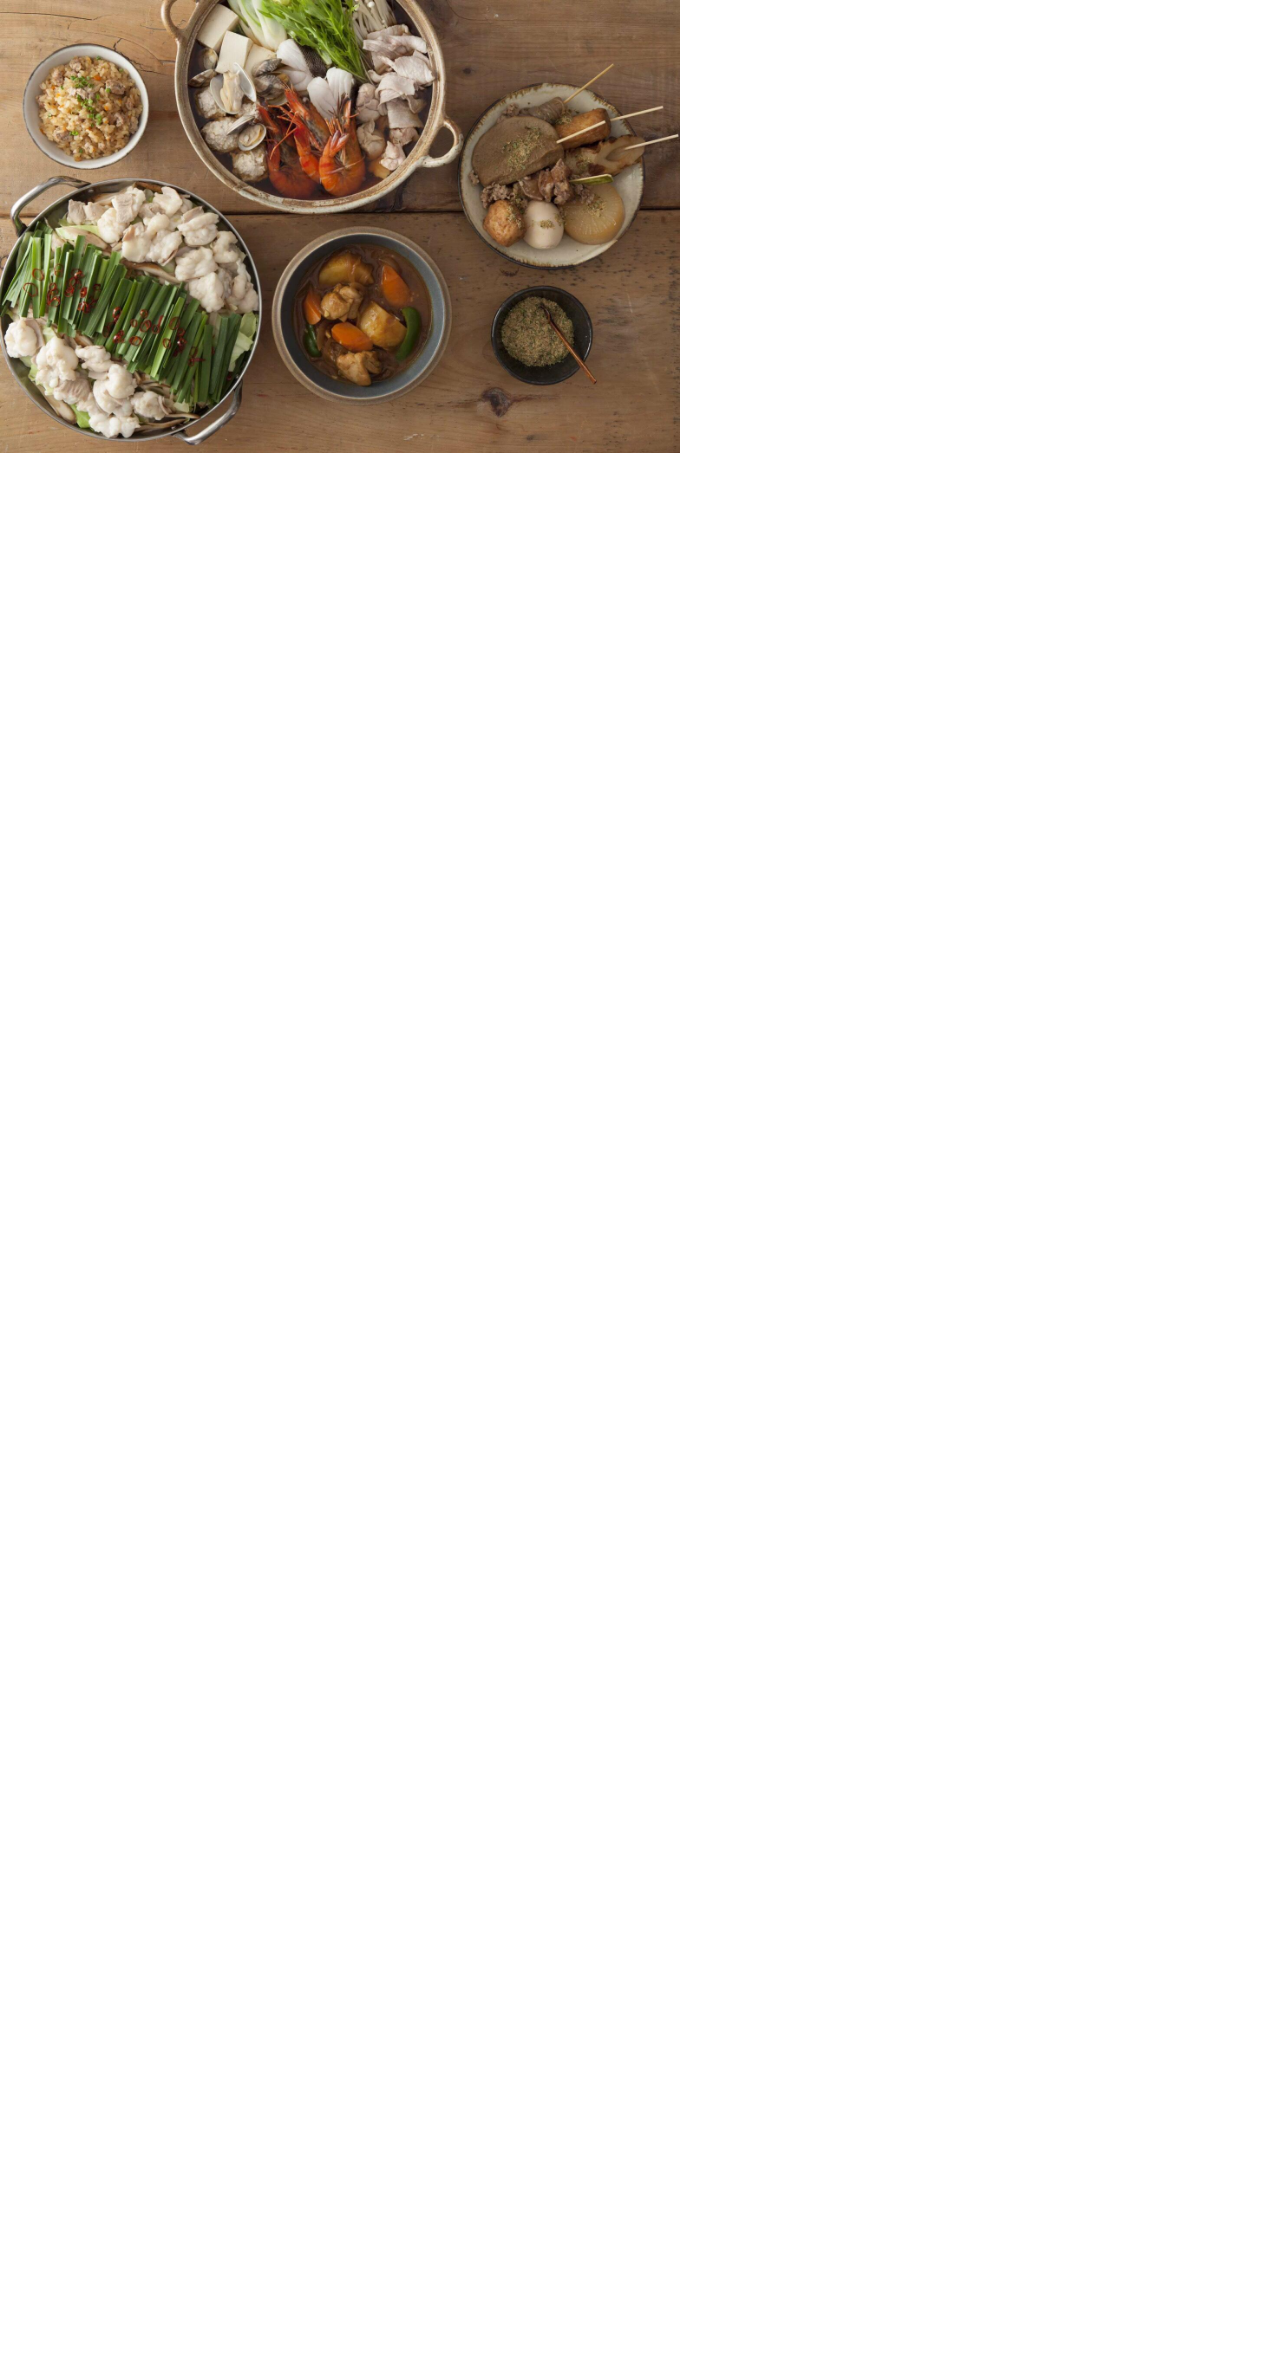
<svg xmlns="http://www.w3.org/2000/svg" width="1275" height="2379">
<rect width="100%" height="100%" fill="#fff"/>
<image x="0" y="0" width="680" height="453" href="media/1.png"/>
</svg>
